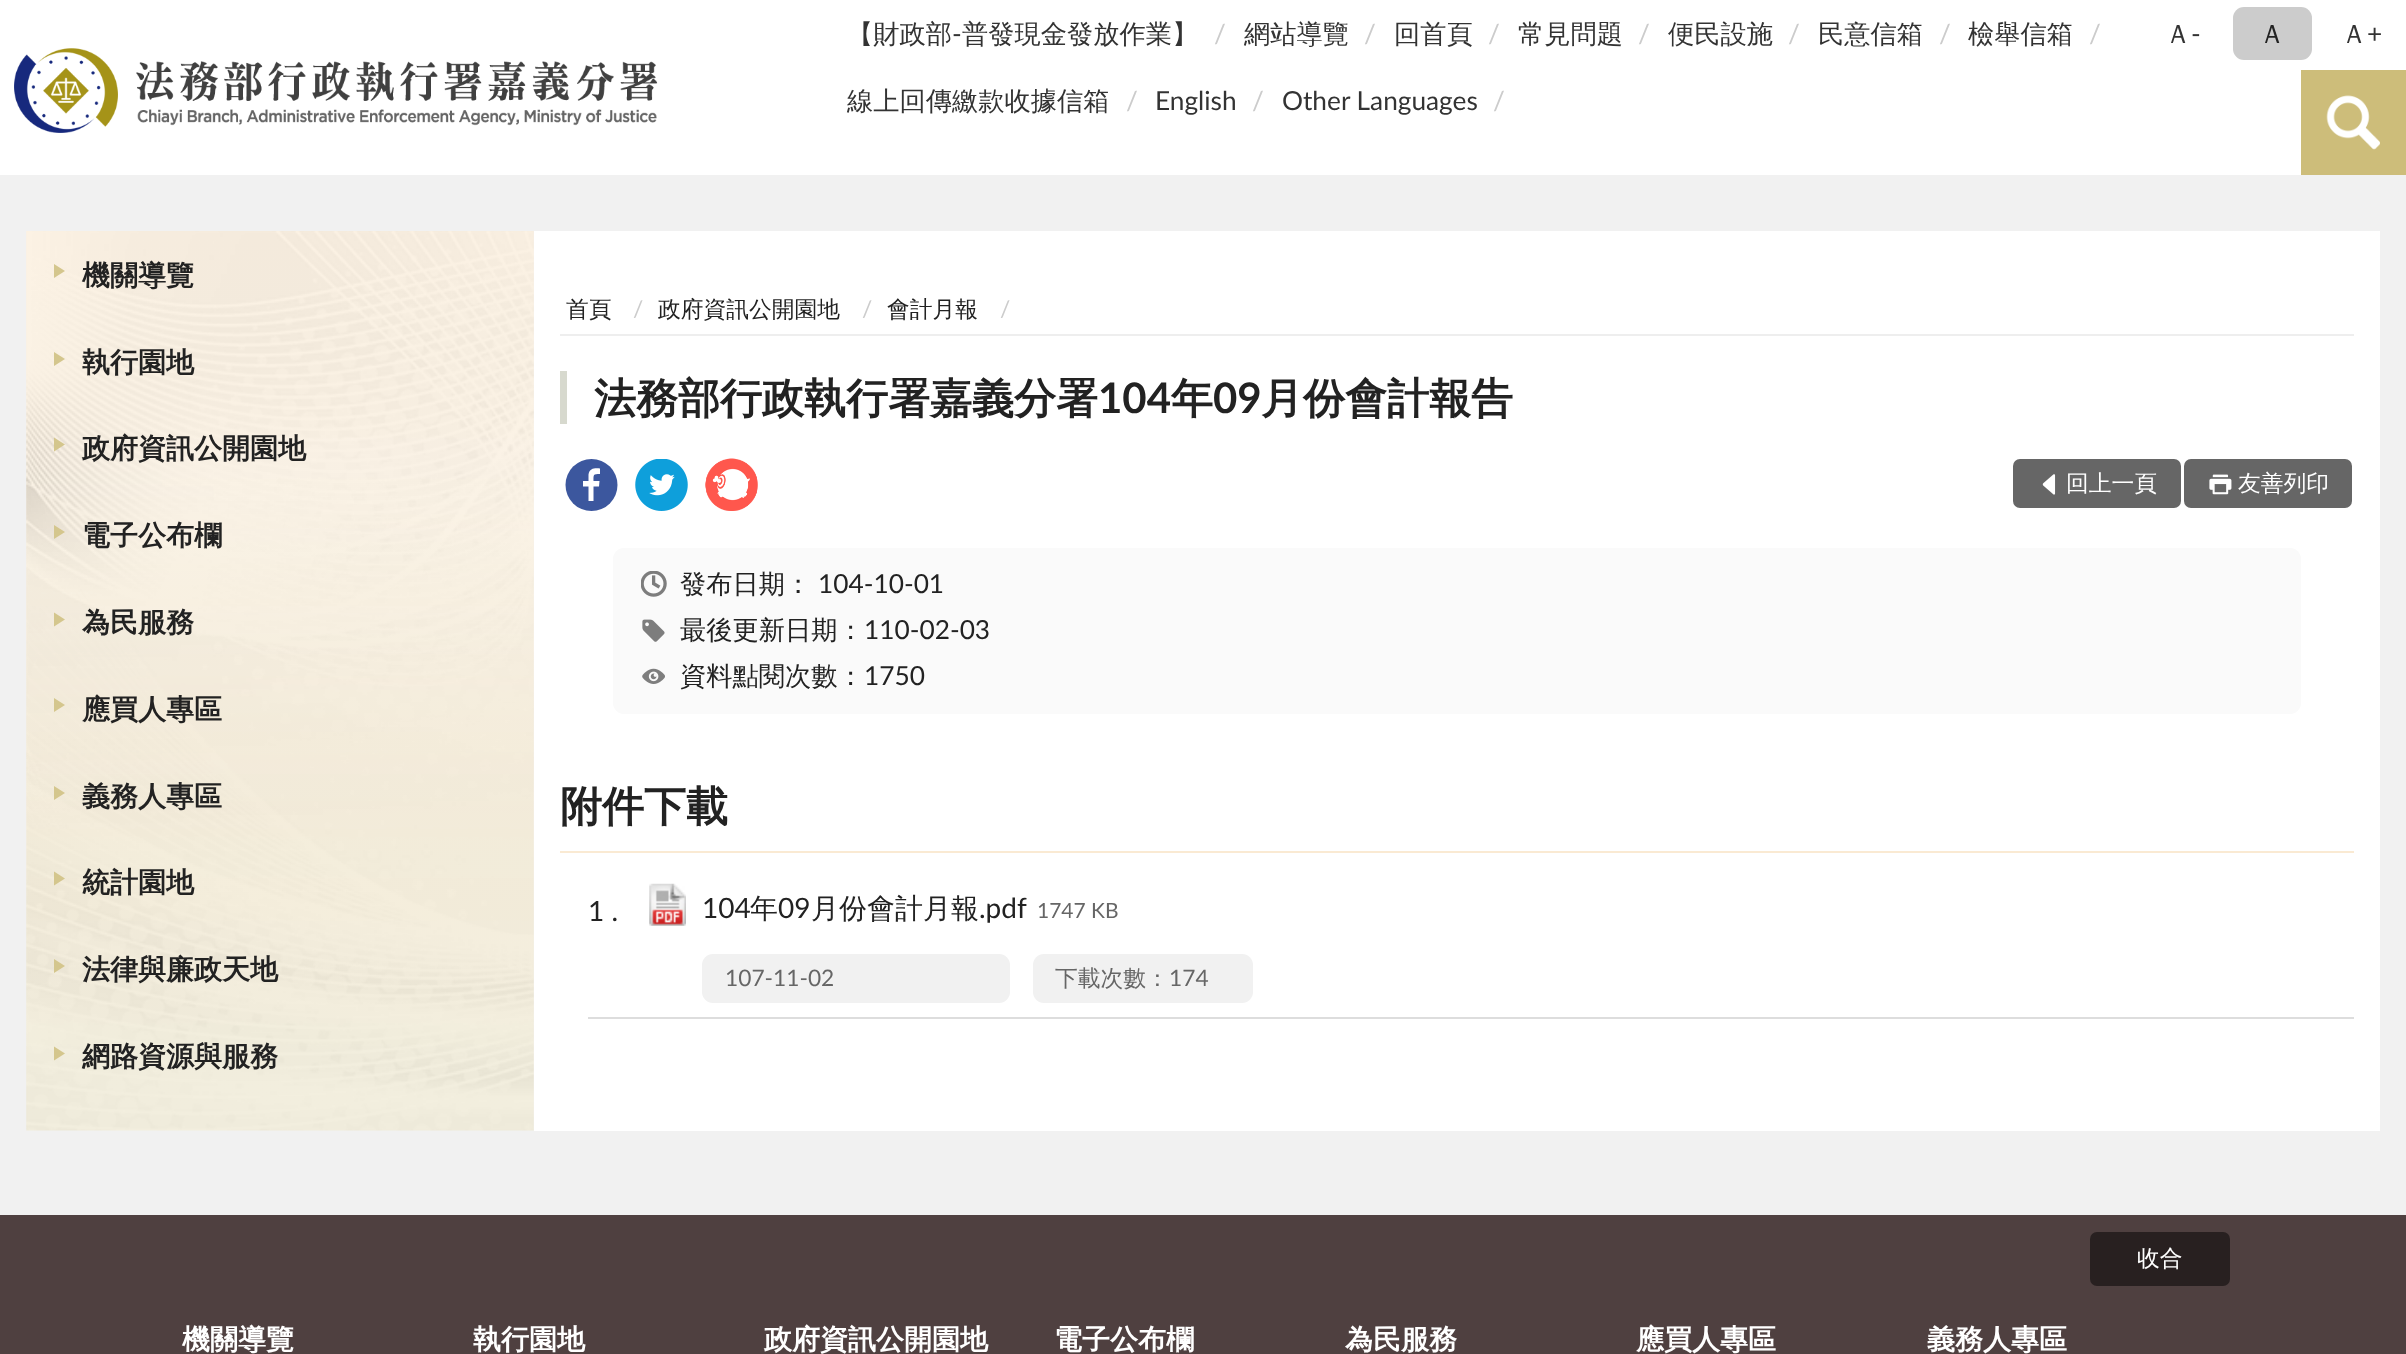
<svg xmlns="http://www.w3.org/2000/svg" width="2406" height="1354">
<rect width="100%" height="100%" fill="#fff"/>
<image x="14" y="48" width="644" height="85" href="media/1.png"/>
<text x="847" y="43" style="font-family:WenQuanYi Zen Hei;font-size:26.25px;font-weight:500;fill:#333">【財政部</text>
<text x="952" y="43" style="font-family:Lato;font-size:26.25px;fill:#333">-</text>
<text x="962" y="43" style="font-family:WenQuanYi Zen Hei;font-size:26.25px;font-weight:500;fill:#333">普發現金發放作業】</text>
<text x="1214" y="43" style="font-family:Lato;font-size:26.25px;fill:#ccc">/</text>
<text x="1244" y="43" style="font-family:WenQuanYi Zen Hei;font-size:26.25px;font-weight:500;fill:#333">網站導覽</text>
<text x="1364" y="43" style="font-family:Lato;font-size:26.25px;fill:#ccc">/</text>
<text x="1394" y="43" style="font-family:WenQuanYi Zen Hei;font-size:26.25px;font-weight:500;fill:#333">回首頁</text>
<text x="1488" y="43" style="font-family:Lato;font-size:26.25px;fill:#ccc">/</text>
<text x="1518" y="43" style="font-family:WenQuanYi Zen Hei;font-size:26.25px;font-weight:500;fill:#333">常見問題</text>
<text x="1638" y="43" style="font-family:Lato;font-size:26.25px;fill:#ccc">/</text>
<text x="1668" y="43" style="font-family:WenQuanYi Zen Hei;font-size:26.25px;font-weight:500;fill:#333">便民設施</text>
<text x="1788" y="43" style="font-family:Lato;font-size:26.25px;fill:#ccc">/</text>
<text x="1818" y="43" style="font-family:WenQuanYi Zen Hei;font-size:26.25px;font-weight:500;fill:#333">民意信箱</text>
<text x="1939" y="43" style="font-family:Lato;font-size:26.25px;fill:#ccc">/</text>
<text x="1968" y="43" style="font-family:WenQuanYi Zen Hei;font-size:26.25px;font-weight:500;fill:#333">檢舉信箱</text>
<text x="2089" y="43" style="font-family:Lato;font-size:26.25px;fill:#ccc">/</text>
<text x="847" y="110" style="font-family:WenQuanYi Zen Hei;font-size:26.25px;font-weight:500;fill:#333">線上回傳繳款收據信箱</text>
<text x="1126" y="110" style="font-family:Lato;font-size:26.25px;fill:#ccc">/</text>
<text x="1155" y="110" style="font-family:Lato;font-size:26.25px;fill:#333">English</text>
<text x="1252" y="110" style="font-family:Lato;font-size:26.25px;fill:#ccc">/</text>
<text x="1282" y="110" style="font-family:Lato;font-size:26.25px;fill:#333">Other Languages</text>
<text x="1493" y="110" style="font-family:Lato;font-size:26.25px;fill:#ccc">/</text>
<text x="2165" y="43" style="font-family:WenQuanYi Zen Hei;font-size:26.25px;font-weight:500;fill:#333">Ａ</text>
<text x="2191" y="43" style="font-family:Lato;font-size:26.25px;fill:#333">-</text>
<rect x="2233" y="7" width="79" height="53" rx="11" fill="#ccc"/>
<text x="2259" y="43" style="font-family:WenQuanYi Zen Hei;font-size:26.25px;font-weight:500;fill:#222">Ａ</text>
<text x="2341" y="43" style="font-family:WenQuanYi Zen Hei;font-size:26.25px;font-weight:500;fill:#333">Ａ</text>
<text x="2367" y="43" style="font-family:Lato;font-size:26.25px;fill:#333">+</text>
<rect x="2301" y="70" width="105" height="105" fill="#cdbd7a"/>
<image x="2326" y="95" width="54" height="55" href="media/2.png"/>
<rect y="175" width="2406" height="1040" fill="#f1f1f1"/>
<image x="26" y="231" width="508" height="900" href="media/3.png"/>
<path d="M54 278v-14l11 7z" fill="#d4c68d"/>
<text x="82" y="285" style="font-family:WenQuanYi Zen Hei;font-size:28px;font-weight:bold;fill:#222">機關導覽</text>
<path d="M54 366v-14l11 7z" fill="#d4c68d"/>
<text x="82" y="372" style="font-family:WenQuanYi Zen Hei;font-size:28px;font-weight:bold;fill:#222">執行園地</text>
<path d="M54 451.5v-14l11 7z" fill="#d4c68d"/>
<text x="82" y="458" style="font-family:WenQuanYi Zen Hei;font-size:28px;font-weight:bold;fill:#222">政府資訊公開園地</text>
<path d="M54 539v-14l11 7z" fill="#d4c68d"/>
<text x="82" y="545" style="font-family:WenQuanYi Zen Hei;font-size:28px;font-weight:bold;fill:#222">電子公布欄</text>
<path d="M54 626.5v-14l11 7z" fill="#d4c68d"/>
<text x="82" y="632" style="font-family:WenQuanYi Zen Hei;font-size:28px;font-weight:bold;fill:#222">為民服務</text>
<path d="M54 712v-14l11 7z" fill="#d4c68d"/>
<text x="82" y="719" style="font-family:WenQuanYi Zen Hei;font-size:28px;font-weight:bold;fill:#222">應買人專區</text>
<path d="M54 800v-14l11 7z" fill="#d4c68d"/>
<text x="82" y="806" style="font-family:WenQuanYi Zen Hei;font-size:28px;font-weight:bold;fill:#222">義務人專區</text>
<path d="M54 885.5v-14l11 7z" fill="#d4c68d"/>
<text x="82" y="892" style="font-family:WenQuanYi Zen Hei;font-size:28px;font-weight:bold;fill:#222">統計園地</text>
<path d="M54 973v-14l11 7z" fill="#d4c68d"/>
<text x="82" y="979" style="font-family:WenQuanYi Zen Hei;font-size:28px;font-weight:bold;fill:#222">法律與廉政天地</text>
<path d="M54 1060.5v-14l11 7z" fill="#d4c68d"/>
<text x="82" y="1066" style="font-family:WenQuanYi Zen Hei;font-size:28px;font-weight:bold;fill:#222">網路資源與服務</text>
<rect x="534" y="231" width="1846" height="900" fill="#fff"/>
<rect x="560" y="334" width="1794" height="2" fill="#eee"/>
<text x="566" y="317" style="font-family:WenQuanYi Zen Hei;font-size:22.75px;font-weight:500;fill:#222">首頁</text>
<text x="633" y="317" style="font-family:Lato;font-size:22.75px;fill:#ccc">/</text>
<text x="658" y="317" style="font-family:WenQuanYi Zen Hei;font-size:22.75px;font-weight:500;fill:#222">政府資訊公開園地</text>
<text x="862" y="317" style="font-family:Lato;font-size:22.75px;fill:#ccc">/</text>
<text x="887" y="317" style="font-family:WenQuanYi Zen Hei;font-size:22.75px;font-weight:500;fill:#222">會計月報</text>
<text x="1000" y="317" style="font-family:Lato;font-size:22.75px;fill:#ccc">/</text>
<rect x="560" y="371" width="7" height="53" fill="#d7d9ce"/>
<text x="594" y="413" style="font-family:WenQuanYi Zen Hei;font-size:42px;font-weight:bold;fill:#222">法務部行政執行署嘉義分署</text>
<text x="1098" y="413" style="font-family:Lato;font-size:42px;font-weight:bold;fill:#222">104</text>
<text x="1171" y="413" style="font-family:WenQuanYi Zen Hei;font-size:42px;font-weight:bold;fill:#222">年</text>
<text x="1213" y="413" style="font-family:Lato;font-size:42px;font-weight:bold;fill:#222">09</text>
<text x="1261" y="413" style="font-family:WenQuanYi Zen Hei;font-size:42px;font-weight:bold;fill:#222">月份會計報告</text>
<circle cx="591.5" cy="485" r="26" fill="#3c579e"/>
<path d="M588.5 501v-14.5h-5.5v-5.5h5.5v-6.5c1-6.5 6.5-6.5 11.5-6v5.5c-7 0-6.5 .5-6.5 7h6l-.5 5.5h-5.5v14.5z" fill="#fff"/>
<image x="635" y="459" width="53" height="52" href="media/4.png"/>
<image x="705" y="458" width="53" height="53" href="media/5.png"/>
<rect x="2013" y="459" width="168" height="49" rx="7" fill="#666"/>
<image x="2042" y="474" width="14" height="21" href="media/6.png"/>
<text x="2066" y="491" style="font-family:WenQuanYi Zen Hei;font-size:22.75px;font-weight:500;fill:#fff">回上一頁</text>
<rect x="2184" y="459" width="168" height="49" rx="7" fill="#666"/>
<image x="2209" y="474" width="23" height="21" href="media/7.png"/>
<text x="2238" y="491" style="font-family:WenQuanYi Zen Hei;font-size:22.75px;font-weight:500;fill:#fff">友善列印</text>
<rect x="613" y="548" width="1688" height="166" rx="11" fill="#fafafa"/>
<image x="641" y="571" width="26" height="26" href="media/8.png"/>
<text x="680" y="593" style="font-family:WenQuanYi Zen Hei;font-size:26.25px;font-weight:500;fill:#222">發布日期：</text>
<text x="818" y="593" style="font-family:Lato;font-size:26.25px;fill:#222">104-10-01</text>
<image x="642" y="619" width="23" height="23" href="media/9.png"/>
<text x="680" y="639" style="font-family:WenQuanYi Zen Hei;font-size:26.25px;font-weight:500;fill:#222">最後更新日期：</text>
<text x="864" y="639" style="font-family:Lato;font-size:26.25px;fill:#222">110-02-03</text>
<image x="642" y="668" width="23" height="16" href="media/10.png"/>
<text x="680" y="685" style="font-family:WenQuanYi Zen Hei;font-size:26.25px;font-weight:500;fill:#222">資料點閱次數：</text>
<text x="864" y="685" style="font-family:Lato;font-size:26.25px;fill:#222">1750</text>
<rect x="560" y="851" width="1794" height="2" fill="#faead3"/>
<text x="560" y="821" style="font-family:WenQuanYi Zen Hei;font-size:42px;font-weight:bold;fill:#222">附件下載</text>
<rect x="588" y="1017" width="1766" height="2" fill="#ddd"/>
<text x="588" y="921" style="font-family:Lato;font-size:28px;fill:#222">1 .</text>
<image x="649" y="883" width="37" height="43" href="media/11.png"/>
<text x="702" y="918" style="font-family:Lato;font-size:28px;fill:#222">104</text>
<text x="750" y="918" style="font-family:WenQuanYi Zen Hei;font-size:28px;font-weight:500;fill:#222">年</text>
<text x="778" y="918" style="font-family:Lato;font-size:28px;fill:#222">09</text>
<text x="811" y="918" style="font-family:WenQuanYi Zen Hei;font-size:28px;font-weight:500;fill:#222">月份會計月報</text>
<text x="979" y="918" style="font-family:Lato;font-size:28px;fill:#222">.pdf</text>
<text x="1037" y="918" style="font-family:Lato;font-size:21px;fill:#666">1747 KB</text>
<rect x="702" y="954" width="308" height="49" rx="11" fill="#f1f1f1"/>
<text x="725" y="986" style="font-family:Lato;font-size:22.75px;fill:#666">107-11-02</text>
<rect x="1033" y="954" width="220" height="49" rx="11" fill="#f1f1f1"/>
<text x="1055" y="986" style="font-family:WenQuanYi Zen Hei;font-size:22.75px;font-weight:500;fill:#666">下載次數：</text>
<text x="1169" y="986" style="font-family:Lato;font-size:22.75px;fill:#666">174</text>
<rect y="1215" width="2406" height="139" fill="#4f4040"/>
<rect x="2090" y="1232" width="140" height="54" rx="7" fill="#282020"/>
<text x="2137" y="1266" style="font-family:WenQuanYi Zen Hei;font-size:22.75px;font-weight:500;fill:#fff">收合</text>
<text x="182" y="1349" style="font-family:WenQuanYi Zen Hei;font-size:28px;font-weight:bold;fill:#fff">機關導覽</text>
<text x="473" y="1349" style="font-family:WenQuanYi Zen Hei;font-size:28px;font-weight:bold;fill:#fff">執行園地</text>
<text x="764" y="1349" style="font-family:WenQuanYi Zen Hei;font-size:28px;font-weight:bold;fill:#fff">政府資訊公開園地</text>
<text x="1054" y="1349" style="font-family:WenQuanYi Zen Hei;font-size:28px;font-weight:bold;fill:#fff">電子公布欄</text>
<text x="1345" y="1349" style="font-family:WenQuanYi Zen Hei;font-size:28px;font-weight:bold;fill:#fff">為民服務</text>
<text x="1636" y="1349" style="font-family:WenQuanYi Zen Hei;font-size:28px;font-weight:bold;fill:#fff">應買人專區</text>
<text x="1927" y="1349" style="font-family:WenQuanYi Zen Hei;font-size:28px;font-weight:bold;fill:#fff">義務人專區</text>
</svg>
